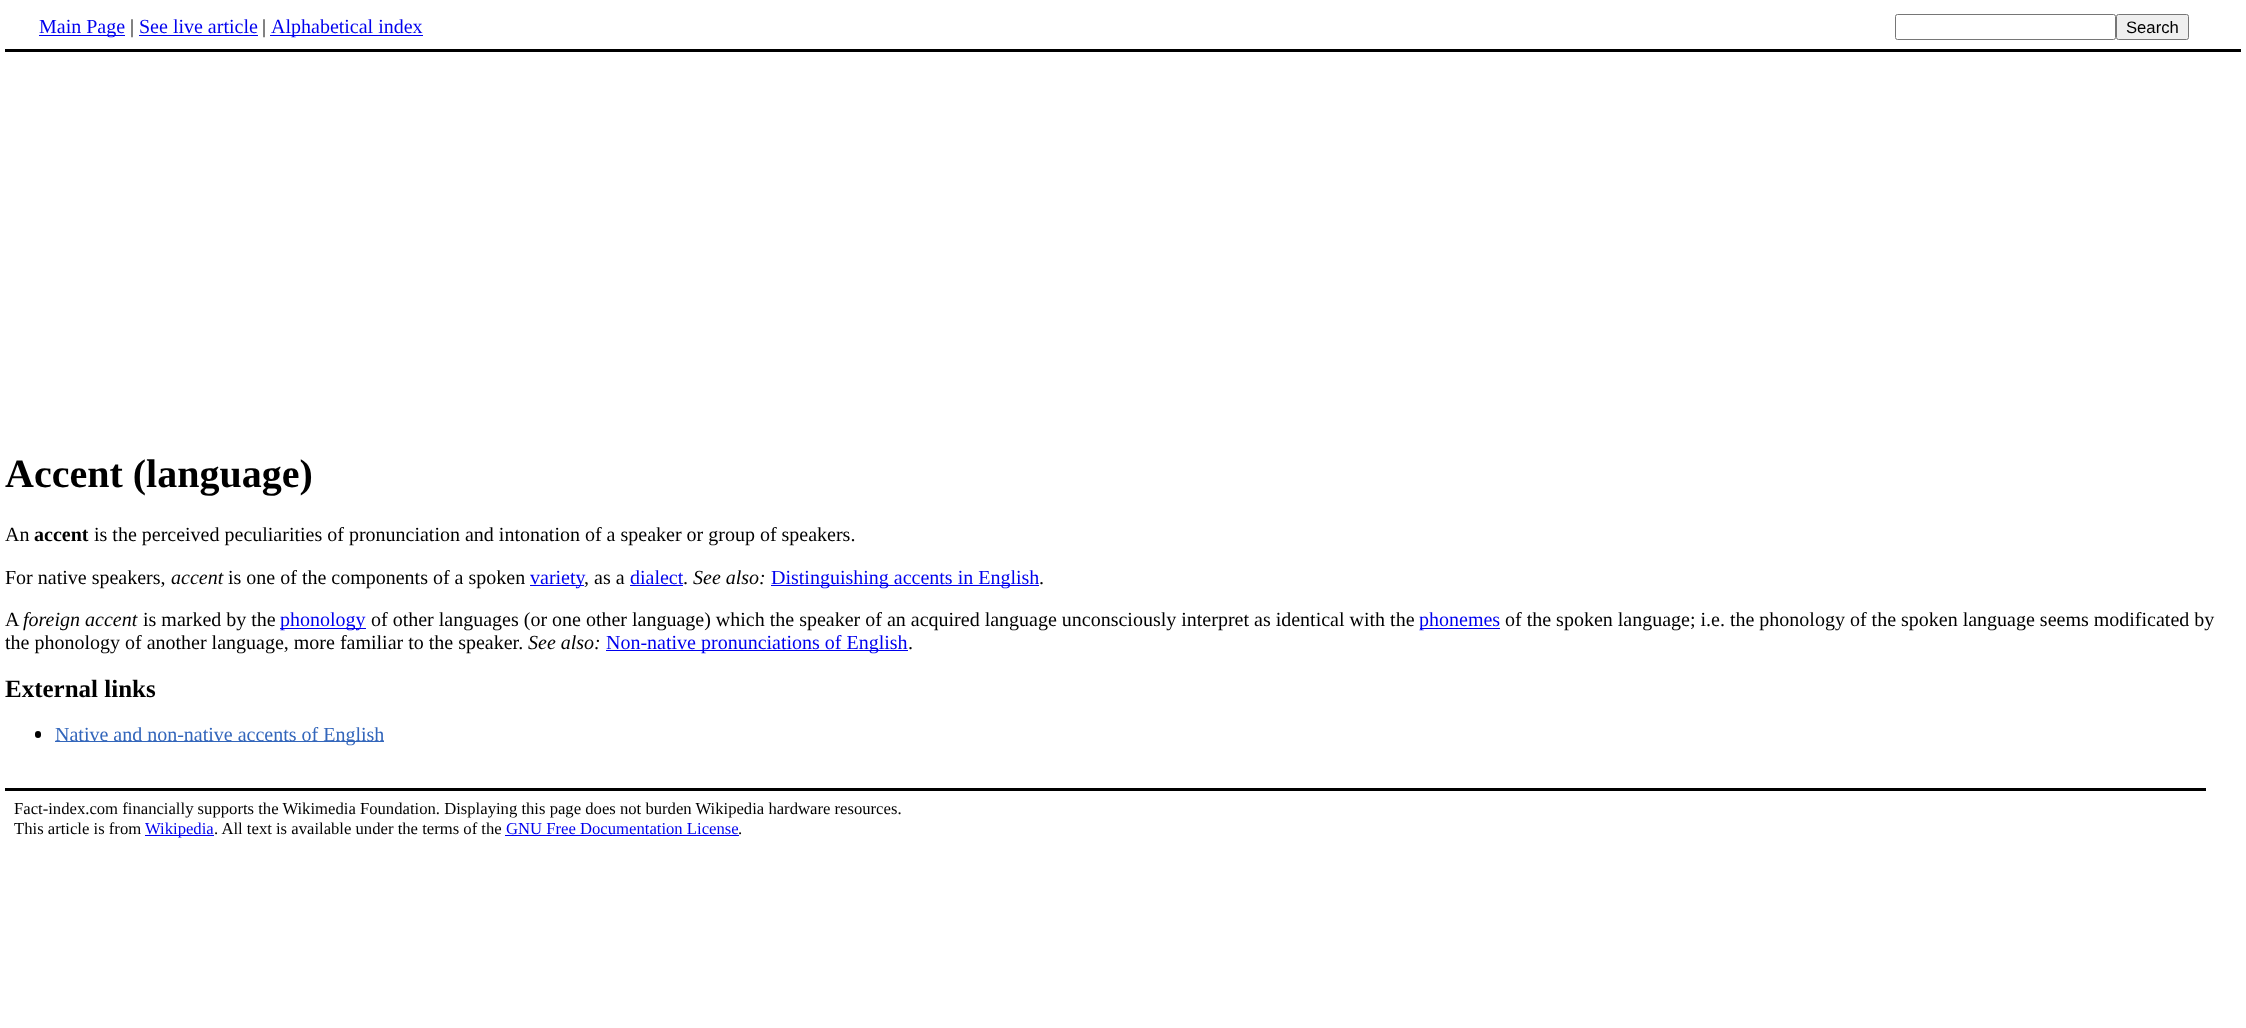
<svg xmlns="http://www.w3.org/2000/svg" width="2246" height="1028">
<rect width="100%" height="100%" fill="#fff"/>
<rect x="5" y="49" width="2236" height="3" fill="#000"/>
<rect x="39" y="35" width="86" height="1" fill="#00e"/>
<text x="39" y="33" style="font-family:Liberation Serif;font-size:20px;fill:#00e">Main Page</text>
<text x="130" y="33" style="font-family:Liberation Serif;font-size:20px;fill:#000">|</text>
<text x="139" y="33" style="font-family:Liberation Serif;font-size:20px;fill:#00e">See live article</text>
<rect x="139" y="35" width="119" height="1" fill="#00e"/>
<text x="262" y="33" style="font-family:Liberation Serif;font-size:20px;fill:#000">|</text>
<rect x="270" y="35" width="153" height="1" fill="#00e"/>
<text x="271" y="33" style="font-family:Liberation Serif;font-size:20px;fill:#00e">Alphabetical index</text>
<rect x="1895.5" y="14.5" width="220" height="25" rx="2" fill="none" stroke="#767676"/>
<rect x="2116.5" y="14.5" width="72" height="25" rx="2" fill="#efefef" stroke="#767676"/>
<text x="2126" y="33" style="font-family:Liberation Sans;font-size:16.67px;fill:#000">Search</text>
<text x="5" y="487" style="font-family:Liberation Serif;font-size:40px;font-weight:bold;fill:#000">Accent (language)</text>
<text x="5" y="541" style="font-family:Liberation Serif;font-size:20px;fill:#000">An</text>
<text x="34" y="541" style="font-family:Liberation Serif;font-size:20px;font-weight:bold;fill:#000">accent</text>
<text x="94" y="541" style="font-family:Liberation Serif;font-size:20px;fill:#000">is the perceived peculiarities of pronunciation and intonation of a speaker or group of speakers.</text>
<text x="5" y="584" style="font-family:Liberation Serif;font-size:20px;fill:#000">For native speakers,</text>
<text x="171" y="584" style="font-family:Liberation Serif;font-size:20px;font-style:italic;fill:#000">accent</text>
<text x="228" y="584" style="font-family:Liberation Serif;font-size:20px;fill:#000">is one of the components of a spoken</text>
<rect x="530" y="585" width="54" height="1" fill="#00e"/>
<text x="530" y="584" style="font-family:Liberation Serif;font-size:20px;fill:#00e">variety</text>
<text x="584" y="584" style="font-family:Liberation Serif;font-size:20px;fill:#000">, as a</text>
<text x="630" y="584" style="font-family:Liberation Serif;font-size:20px;fill:#00e">dialect</text>
<rect x="630" y="585" width="53" height="1" fill="#00e"/>
<text x="683" y="584" style="font-family:Liberation Serif;font-size:20px;fill:#000">.</text>
<text x="693" y="584" style="font-family:Liberation Serif;font-size:20px;font-style:italic;fill:#000">See also:</text>
<rect x="771" y="585" width="268" height="1" fill="#00e"/>
<text x="771" y="584" style="font-family:Liberation Serif;font-size:20px;fill:#00e">Distinguishing accents in English</text>
<text x="1039" y="584" style="font-family:Liberation Serif;font-size:20px;fill:#000">.</text>
<text x="5" y="626" style="font-family:Liberation Serif;font-size:20px;fill:#000">A</text>
<text x="23" y="626" style="font-family:Liberation Serif;font-size:20px;font-style:italic;fill:#000">foreign accent</text>
<text x="143" y="626" style="font-family:Liberation Serif;font-size:20px;fill:#000">is marked by the</text>
<rect x="280" y="628" width="86" height="1" fill="#00e"/>
<text x="280" y="626" style="font-family:Liberation Serif;font-size:20px;fill:#00e">phonology</text>
<text x="371" y="626" style="font-family:Liberation Serif;font-size:20px;fill:#000">of other languages (or one other language) which the speaker of an acquired language unconsciously interpret as identical with the</text>
<rect x="1420" y="628" width="80" height="1" fill="#00e"/>
<text x="1419" y="626" style="font-family:Liberation Serif;font-size:20px;fill:#00e">phonemes</text>
<text x="1505" y="626" style="font-family:Liberation Serif;font-size:20px;fill:#000">of the spoken language; i.e. the phonology of the spoken language seems modificated by</text>
<text x="5" y="649" style="font-family:Liberation Serif;font-size:20px;fill:#000">the phonology of another language, more familiar to the speaker.</text>
<text x="528" y="649" style="font-family:Liberation Serif;font-size:20px;font-style:italic;fill:#000">See also:</text>
<rect x="606" y="650" width="302" height="1" fill="#00e"/>
<text x="606" y="649" style="font-family:Liberation Serif;font-size:20px;fill:#00e">Non-native pronunciations of English</text>
<text x="908" y="649" style="font-family:Liberation Serif;font-size:20px;fill:#000">.</text>
<text x="5" y="697" style="font-family:Liberation Serif;font-size:25px;font-weight:bold;fill:#000">External links</text>
<rect x="35" y="731" width="6" height="7" rx="3" fill="#000"/>
<rect x="55" y="741" width="329" height="1" fill="#36b"/>
<text x="55" y="741" style="font-family:Liberation Serif;font-size:20px;fill:#36b">Native and non-native accents of English</text>
<rect x="5" y="788" width="2201" height="3" fill="#000"/>
<text x="14" y="814" style="font-family:Liberation Serif;font-size:16.67px;fill:#000">Fact-index.com financially supports the Wikimedia Foundation. Displaying this page does not burden Wikipedia hardware resources.</text>
<text x="14" y="834" style="font-family:Liberation Serif;font-size:16.67px;fill:#000">This article is from</text>
<rect x="145" y="835" width="69" height="1" fill="#00e"/>
<text x="145" y="834" style="font-family:Liberation Serif;font-size:16.67px;fill:#00e">Wikipedia</text>
<text x="214" y="834" style="font-family:Liberation Serif;font-size:16.67px;fill:#000">. All text is available under the terms of the</text>
<text x="506" y="834" style="font-family:Liberation Serif;font-size:16.67px;fill:#00e">GNU Free Documentation License</text>
<text x="738" y="834" style="font-family:Liberation Serif;font-size:16.67px;fill:#000">.</text>
<rect x="505" y="835" width="234" height="1" fill="#00e"/>
</svg>
